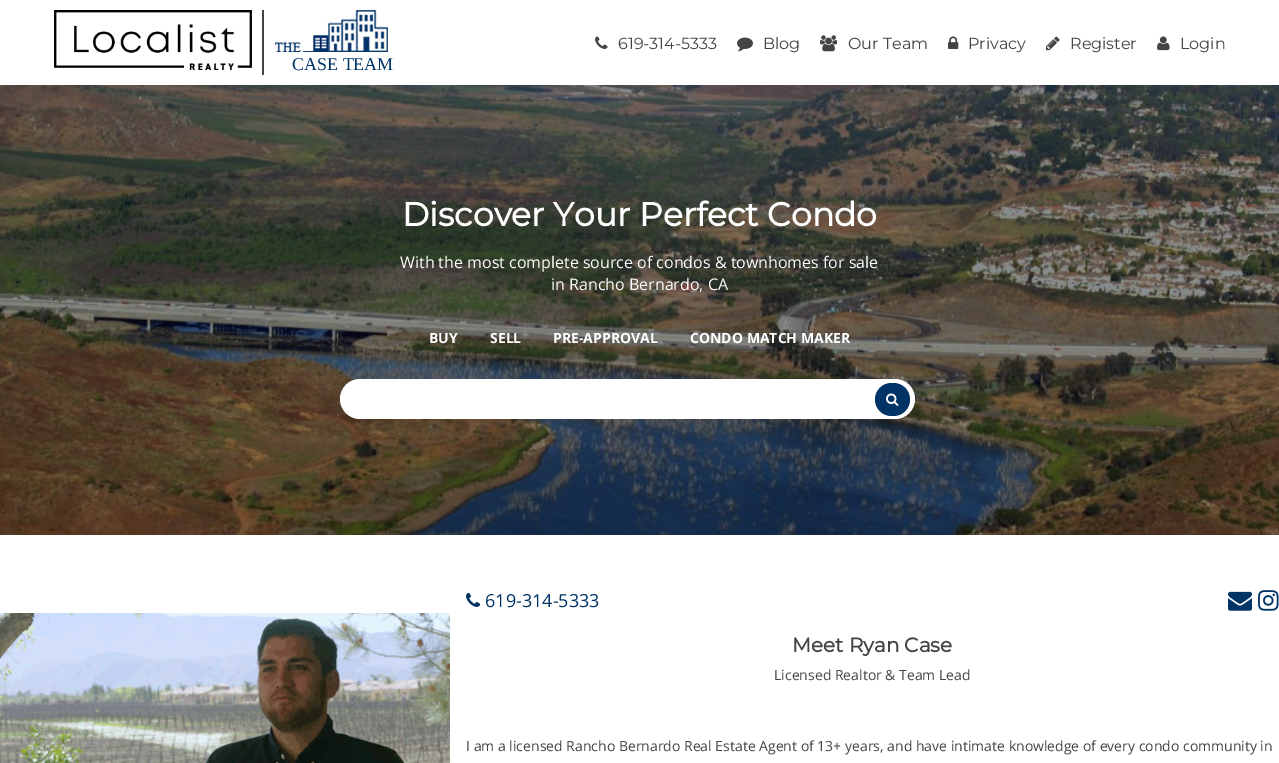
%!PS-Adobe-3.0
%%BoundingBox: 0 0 1279 763
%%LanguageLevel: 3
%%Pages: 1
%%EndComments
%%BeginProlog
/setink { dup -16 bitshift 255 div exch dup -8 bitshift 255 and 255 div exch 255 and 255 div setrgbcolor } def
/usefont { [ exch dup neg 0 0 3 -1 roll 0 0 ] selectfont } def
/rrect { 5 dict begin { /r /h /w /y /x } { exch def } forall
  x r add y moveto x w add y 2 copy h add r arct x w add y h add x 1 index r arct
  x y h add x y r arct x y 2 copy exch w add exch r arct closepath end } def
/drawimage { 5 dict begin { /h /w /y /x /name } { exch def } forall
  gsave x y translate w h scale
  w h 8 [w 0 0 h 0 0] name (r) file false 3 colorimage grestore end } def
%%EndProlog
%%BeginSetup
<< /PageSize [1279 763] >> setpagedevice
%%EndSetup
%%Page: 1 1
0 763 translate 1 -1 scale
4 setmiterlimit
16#FFFFFF setink
0 0 1279 763 rectfill
(img1.raw) 595 36 13 13 drawimage
/Montserrat-Thin 16 usefont
16#444444 setink
618 49 moveto (619-314-5333) show
(img2.raw) 737 37 16 15 drawimage
763 49 moveto (Blog) show
(img3.raw) 820 35 18 17 drawimage
848 49 moveto (Our Team) show
(img4.raw) 948 36 11 13 drawimage
968 49 moveto (Privacy) show
(img5.raw) 1046 36 14 15 drawimage
1070 49 moveto (Register) show
(img6.raw) 1157 36 13 15 drawimage
1180 49 moveto (Login) show
262 10 2 65 rectfill
(img7.raw) 54 10 198 60 drawimage
(img8.raw) 275 10 113 42 drawimage
/LiberationSerif-Regular 18 usefont
16#003366 setink
292 70 moveto (CASE TEAM) show
(img9.raw) 0 85 1279 450 drawimage
/Montserrat-Bold 33 usefont
16#FFFFFF setink
402 226 moveto (Discover Your Perfect Condo) show
/OpenSans-Regular 16 usefont
400 268 moveto (With the most complete source of condos & townhomes for sale) show
551 290 moveto (in Rancho Bernardo, CA) show
/OpenSans-Bold 14 usefont
[
    [(BUY) 429 343]
    [(SELL) 490 343]
    [(PRE-APPROVAL) 553 343]
    [(CONDO MATCH MAKER) 690 343]
] { aload pop moveto show } forall
340 379 575 40 20 rrect fill
16#003366 setink
875 383 35 33 16.5 rrect fill
(img10.raw) 886 393 13 13 drawimage
(img11.raw) 0 613 450 150 drawimage
(img12.raw) 466 592 15 15 drawimage
/OpenSans-Regular 18 usefont
485 607 moveto (619-314-5333) show
(img13.raw) 1228 591 24 20 drawimage
(img14.raw) 1258 590 21 21 drawimage
/Montserrat-Bold 20 usefont
16#444444 setink
792 652 moveto (Meet Ryan Case) show
/OpenSans-Regular 14 usefont
774 680 moveto (Licensed Realtor & Team Lead) show
466 751 moveto (I am a licensed Rancho Bernardo Real Estate Agent of 13+ years, and have intimate knowledge of every condo community in) show
showpage
%%EOF
